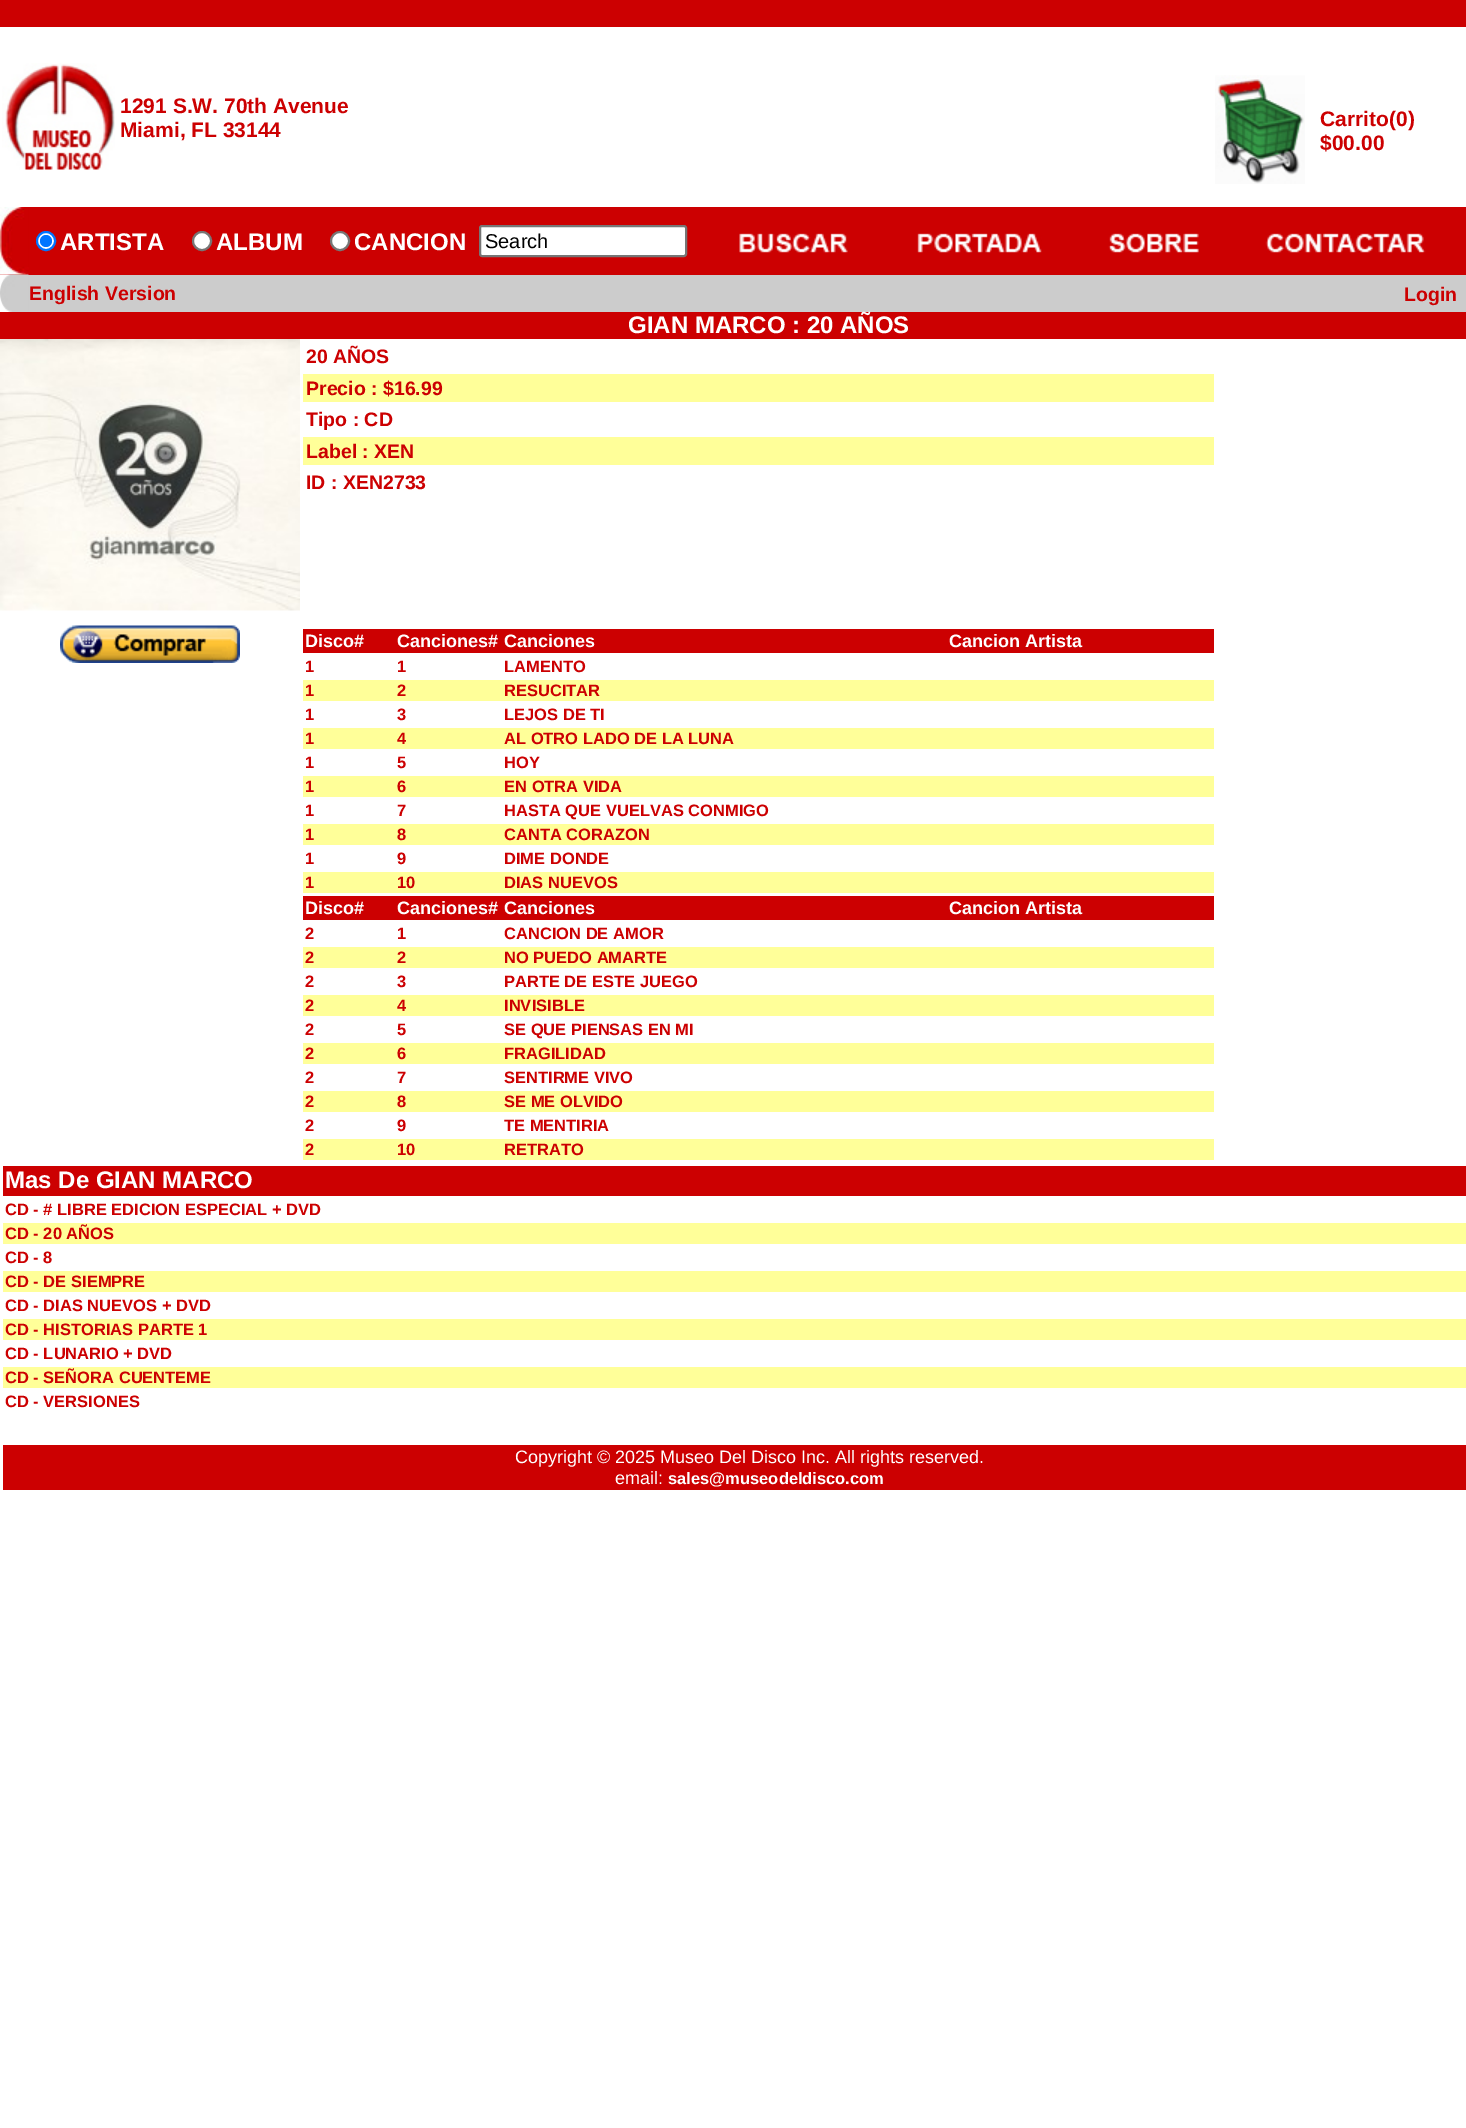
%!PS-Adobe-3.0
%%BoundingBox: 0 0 1466 2128
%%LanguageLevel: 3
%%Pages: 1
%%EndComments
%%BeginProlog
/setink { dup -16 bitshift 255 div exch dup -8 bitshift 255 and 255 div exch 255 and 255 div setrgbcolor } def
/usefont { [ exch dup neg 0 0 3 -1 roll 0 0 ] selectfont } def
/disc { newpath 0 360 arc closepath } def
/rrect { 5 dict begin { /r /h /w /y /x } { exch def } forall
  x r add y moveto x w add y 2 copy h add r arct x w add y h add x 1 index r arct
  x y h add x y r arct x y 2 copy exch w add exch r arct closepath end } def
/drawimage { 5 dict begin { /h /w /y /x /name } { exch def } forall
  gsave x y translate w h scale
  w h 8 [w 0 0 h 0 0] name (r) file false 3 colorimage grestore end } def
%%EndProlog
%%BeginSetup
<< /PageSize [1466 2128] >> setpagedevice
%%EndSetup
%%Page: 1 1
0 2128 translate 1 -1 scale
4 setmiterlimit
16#FFFFFF setink
0 0 1466 2128 rectfill
16#CC0001 setink
0 0 1466 27 rectfill
(img1.raw) 2 63 113 107 drawimage
/LiberationSans-Bold 21 usefont
120 113 moveto (1291 S.W. 70th Avenue) show
120 137 moveto (Miami, FL 33144) show
(img2.raw) 1215 75 90 109 drawimage
1320 126 moveto (Carrito\(0\)) show
1320 150 moveto ($00.00) show
0 207 1466 68 rectfill
(img3.raw) 0 207 29 68 drawimage
16#FFFFFF setink
46 241 9 disc gsave fill grestore
16#0075FF setink
2 setlinewidth
stroke
46 241 6 disc fill
/LiberationSans-Bold 24 usefont
16#FFFFFF setink
60 250 moveto (ARTISTA) show
202 241 9 disc gsave fill grestore
16#767676 setink
stroke
16#FFFFFF setink
216 250 moveto (ALBUM) show
340 241 9 disc gsave fill grestore
16#767676 setink
stroke
16#FFFFFF setink
354 250 moveto (CANCION) show
480 226 206 30 2 rrect gsave fill grestore
16#767676 setink
stroke
/LiberationSans-Regular 20 usefont
16#000000 setink
485 248 moveto (Search) show
(img4.raw) 739 233 109 20 drawimage
(img5.raw) 917 233 125 20 drawimage
(img6.raw) 1108 233 91 20 drawimage
(img7.raw) 1265 233 161 20 drawimage
16#CCCCCC setink
28 275 1438 37 rectfill
(img8.raw) 0 274 29 38 drawimage
/LiberationSans-Bold 19.5 usefont
16#CC0001 setink
29 300 moveto (English Version) show
1404 301 moveto (Login) show
0 312 1466 27 rectfill
/LiberationSans-Bold 24 usefont
16#FFFFFF setink
628 333 moveto (GIAN MARCO : 20 AÑOS) show
(img9.raw) 0 339 300 272 drawimage
/LiberationSans-Bold 19.5 usefont
16#CC0001 setink
306 363 moveto (20 AÑOS) show
16#FFFF99 setink
303 374 911 28 rectfill
16#CC0001 setink
306 395 moveto (Precio : $16.99) show
306 426 moveto (Tipo : CD) show
16#FFFF99 setink
303 437 911 28 rectfill
16#CC0001 setink
306 458 moveto (Label : XEN) show
306 489 moveto (ID : XEN2733) show
(img10.raw) 60 625 180 38 drawimage
303 629 911 24 rectfill
/LiberationSans-Bold 18 usefont
16#FFFFFF setink
[
    [(Disco#) 305 647]
    [(Canciones#) 397 647]
    [(Canciones) 504 647]
    [(Cancion Artista) 949 647]
] { aload pop moveto show } forall
/LiberationSans-Bold 16.5 usefont
16#CC0001 setink
[
    [(1) 305 672]
    [(1) 397 672]
    [(LAMENTO) 504 672]
] { aload pop moveto show } forall
16#FFFF99 setink
303 680 911 21 rectfill
16#CC0001 setink
[
    [(1) 305 696]
    [(2) 397 696]
    [(RESUCITAR) 504 696]
    [(1) 305 720]
    [(3) 397 720]
    [(LEJOS DE TI) 504 720]
] { aload pop moveto show } forall
16#FFFF99 setink
303 728 911 21 rectfill
16#CC0001 setink
[
    [(1) 305 744]
    [(4) 397 744]
    [(AL OTRO LADO DE LA LUNA) 504 744]
    [(1) 305 768]
    [(5) 397 768]
    [(HOY) 504 768]
] { aload pop moveto show } forall
16#FFFF99 setink
303 776 911 21 rectfill
16#CC0001 setink
[
    [(1) 305 792]
    [(6) 397 792]
    [(EN OTRA VIDA) 504 792]
    [(1) 305 816]
    [(7) 397 816]
    [(HASTA QUE VUELVAS CONMIGO) 504 816]
] { aload pop moveto show } forall
16#FFFF99 setink
303 824 911 21 rectfill
16#CC0001 setink
[
    [(1) 305 840]
    [(8) 397 840]
    [(CANTA CORAZON) 504 840]
    [(1) 305 864]
    [(9) 397 864]
    [(DIME DONDE) 504 864]
] { aload pop moveto show } forall
16#FFFF99 setink
303 872 911 21 rectfill
16#CC0001 setink
[
    [(1) 305 888]
    [(10) 397 888]
    [(DIAS NUEVOS) 504 888]
] { aload pop moveto show } forall
303 896 911 24 rectfill
/LiberationSans-Bold 18 usefont
16#FFFFFF setink
[
    [(Disco#) 305 914]
    [(Canciones#) 397 914]
    [(Canciones) 504 914]
    [(Cancion Artista) 949 914]
] { aload pop moveto show } forall
/LiberationSans-Bold 16.5 usefont
16#CC0001 setink
[
    [(2) 305 939]
    [(1) 397 939]
    [(CANCION DE AMOR) 504 939]
] { aload pop moveto show } forall
16#FFFF99 setink
303 947 911 21 rectfill
16#CC0001 setink
[
    [(2) 305 963]
    [(2) 397 963]
    [(NO PUEDO AMARTE) 504 963]
    [(2) 305 987]
    [(3) 397 987]
    [(PARTE DE ESTE JUEGO) 504 987]
] { aload pop moveto show } forall
16#FFFF99 setink
303 995 911 21 rectfill
16#CC0001 setink
[
    [(2) 305 1011]
    [(4) 397 1011]
    [(INVISIBLE) 504 1011]
    [(2) 305 1035]
    [(5) 397 1035]
    [(SE QUE PIENSAS EN MI) 504 1035]
] { aload pop moveto show } forall
16#FFFF99 setink
303 1043 911 21 rectfill
16#CC0001 setink
[
    [(2) 305 1059]
    [(6) 397 1059]
    [(FRAGILIDAD) 504 1059]
    [(2) 305 1083]
    [(7) 397 1083]
    [(SENTIRME VIVO) 504 1083]
] { aload pop moveto show } forall
16#FFFF99 setink
303 1091 911 21 rectfill
16#CC0001 setink
[
    [(2) 305 1107]
    [(8) 397 1107]
    [(SE ME OLVIDO) 504 1107]
    [(2) 305 1131]
    [(9) 397 1131]
    [(TE MENTIRIA) 504 1131]
] { aload pop moveto show } forall
16#FFFF99 setink
303 1139 911 21 rectfill
16#CC0001 setink
[
    [(2) 305 1155]
    [(10) 397 1155]
    [(RETRATO) 504 1155]
] { aload pop moveto show } forall
3 1166 1463 30 rectfill
/LiberationSans-Bold 24 usefont
16#FFFFFF setink
5 1188 moveto (Mas De GIAN MARCO) show
/LiberationSans-Bold 16.5 usefont
16#CC0001 setink
5 1215 moveto (CD - # LIBRE EDICION ESPECIAL + DVD) show
16#FFFF99 setink
3 1223 1463 21 rectfill
16#CC0001 setink
5 1239 moveto (CD - 20 AÑOS) show
5 1263 moveto (CD - 8) show
16#FFFF99 setink
3 1271 1463 21 rectfill
16#CC0001 setink
5 1287 moveto (CD - DE SIEMPRE) show
5 1311 moveto (CD - DIAS NUEVOS + DVD) show
16#FFFF99 setink
3 1319 1463 21 rectfill
16#CC0001 setink
5 1335 moveto (CD - HISTORIAS PARTE 1) show
5 1359 moveto (CD - LUNARIO + DVD) show
16#FFFF99 setink
3 1367 1463 21 rectfill
16#CC0001 setink
5 1383 moveto (CD - SEÑORA CUENTEME) show
5 1407 moveto (CD - VERSIONES) show
3 1445 1463 45 rectfill
/LiberationSans-Regular 18 usefont
16#FFFFFF setink
515 1463 moveto (Copyright © 2025 Museo Del Disco Inc. All rights reserved.) show
615 1484 moveto (email:) show
/LiberationSans-Bold 16.5 usefont
668 1484 moveto (sales@museodeldisco.com) show
showpage
%%EOF
